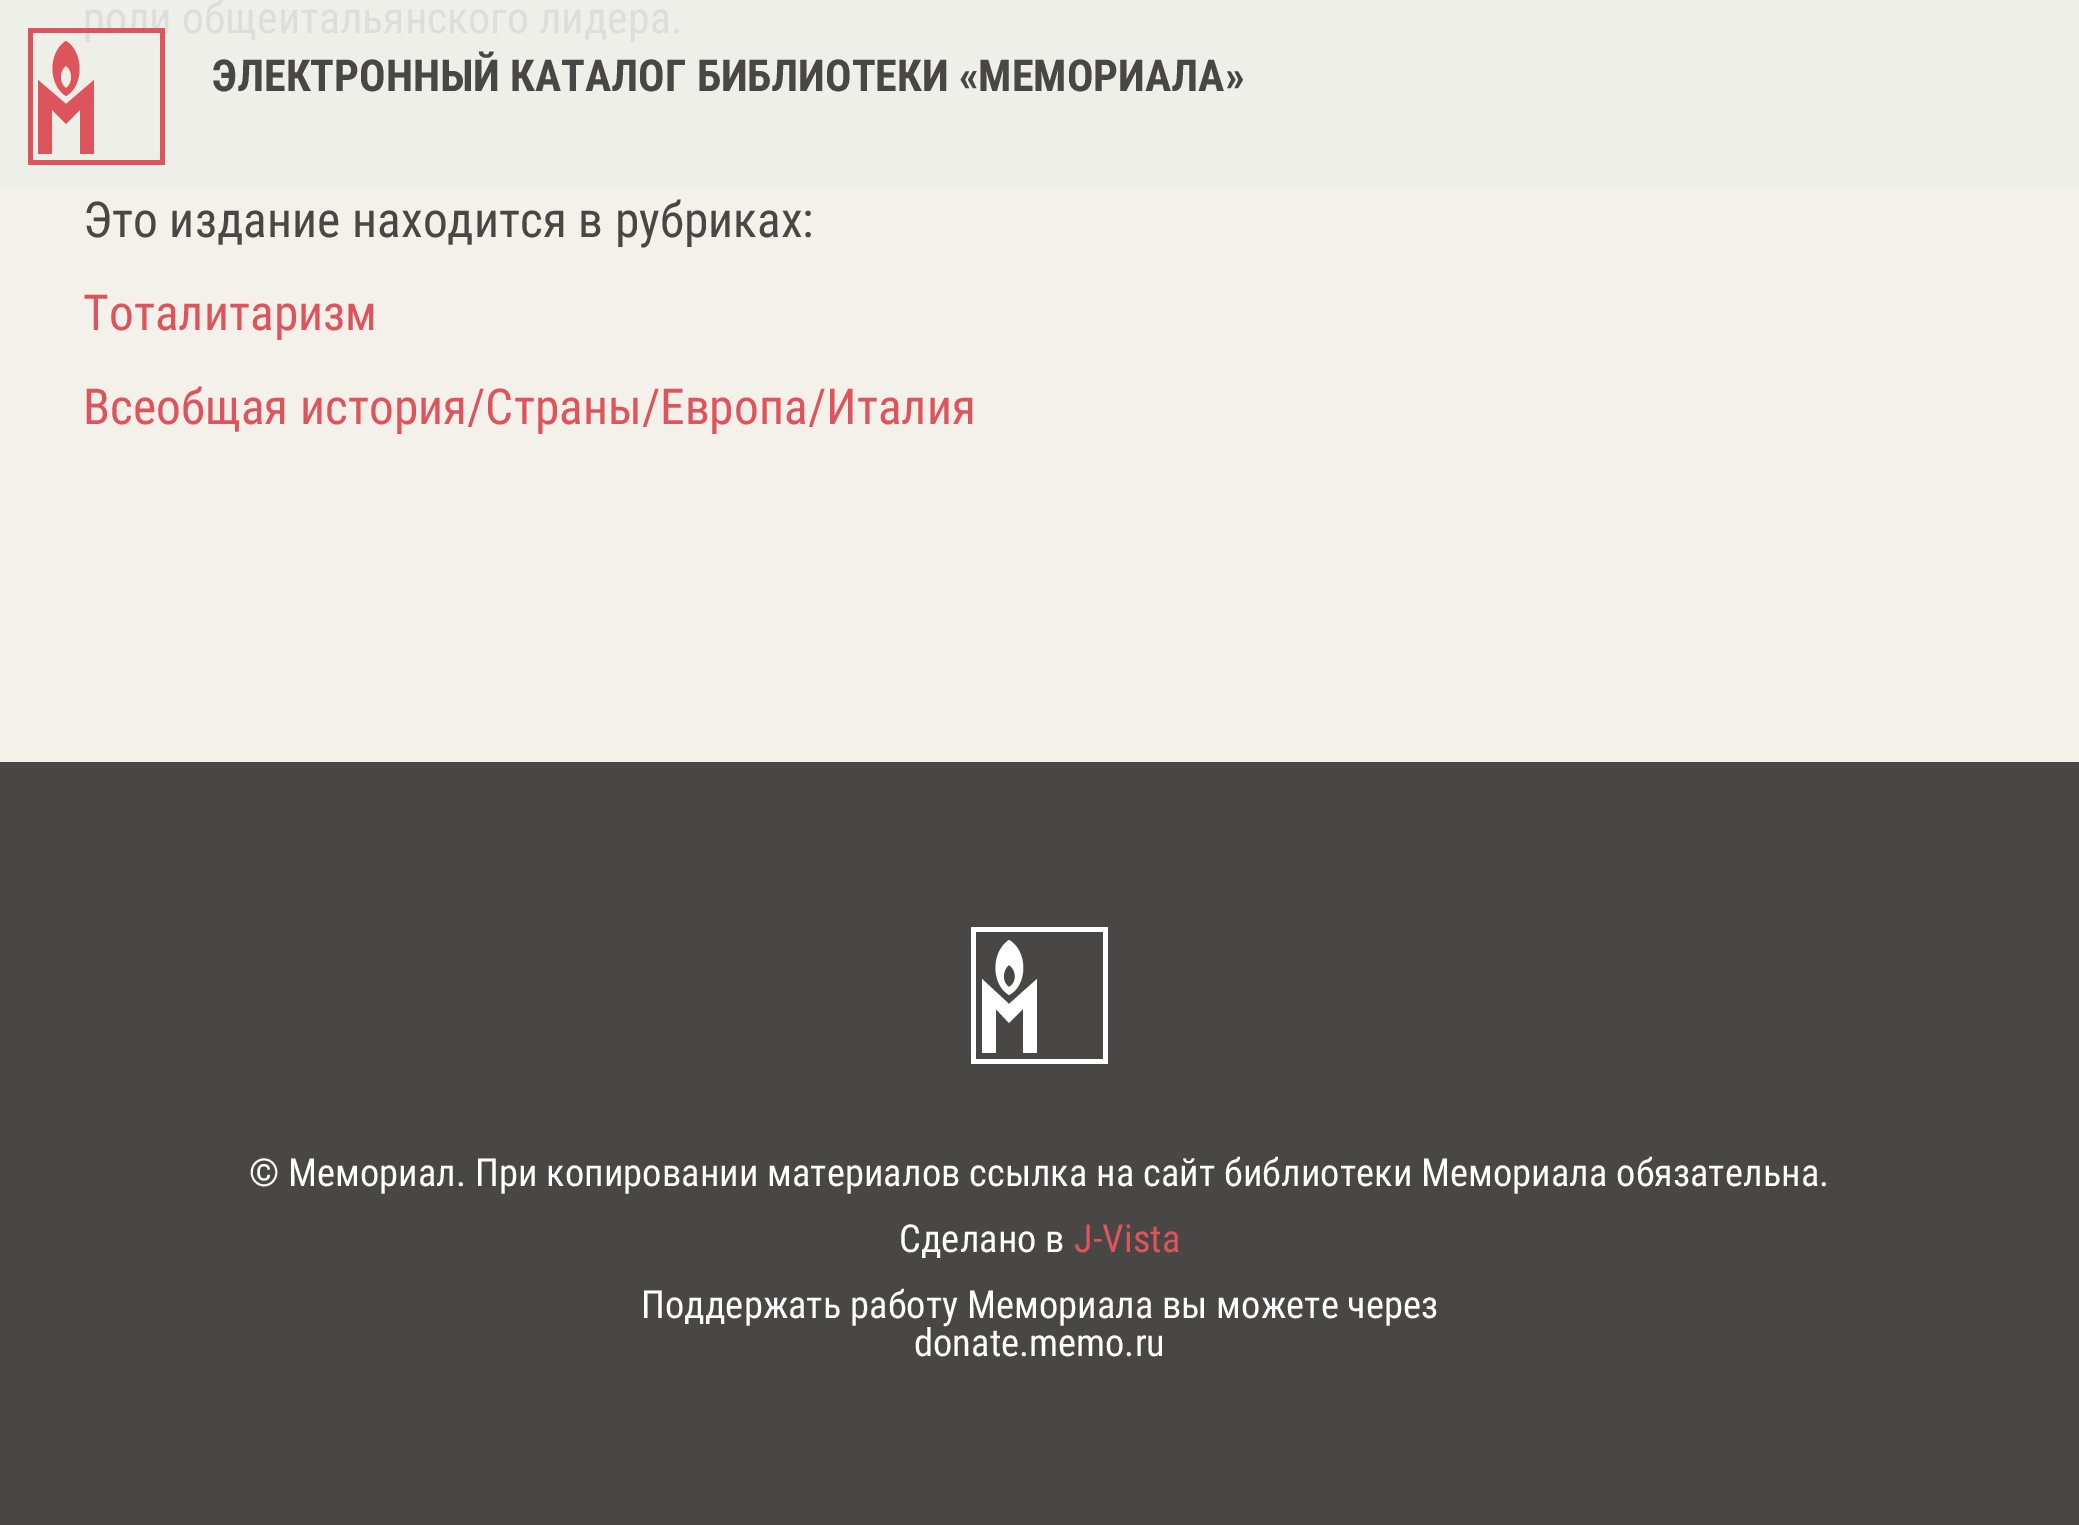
%!PS-Adobe-3.0
%%BoundingBox: 0 0 2079 1525
%%LanguageLevel: 3
%%Pages: 1
%%EndComments
%%BeginProlog
/setink { dup -16 bitshift 255 div exch dup -8 bitshift 255 and 255 div exch 255 and 255 div setrgbcolor } def
/usefont { [ exch dup neg 0 0 3 -1 roll 0 0 ] selectfont } def
%%EndProlog
%%BeginSetup
<< /PageSize [2079 1525] >> setpagedevice
%%EndSetup
%%Page: 1 1
0 1525 translate 1 -1 scale
4 setmiterlimit
16#F4F1EA setink
0 0 2079 1525 rectfill
16#EFEFEA setink
0 0 2079 187 rectfill
/RobotoCondensed-Regular 44 usefont
16#DDDEDA setink
83 33 moveto (роли общеитальянского лидера.) show
/RobotoCondensed-Regular 49.5 usefont
16#484745 setink
83 237 moveto (Это издание находится в рубриках:) show
16#DD545C setink
83 330 moveto (Тоталитаризм) show
83 424 moveto (Всеобщая история/Страны/Европа/Италия) show
gsave
28 28 137 137 rectclip
28 165 moveto 28 27 lineto 165 27 lineto 165 165 lineto closepath 160 33 moveto 33 33 lineto 33 160 lineto 160 160 lineto closepath 94 80 moveto 94 154 lineto 80 154 lineto 80 110 lineto 66 124 lineto 52 110 lineto 52 154 lineto 38 154 lineto 38 80 lineto 66 104 lineto closepath 66 96 moveto 48 85 48 52 66 41 curveto 84 52 84 86 66 96 curveto closepath 66 66 moveto 59 70 59 84 66 88 curveto 73 84 73 70 66 66 curveto closepath eofill
grestore
/RobotoCondensed-Bold 44 usefont
16#484745 setink
212 91 moveto (ЭЛЕКТРОННЫЙ КАТАЛОГ БИБЛИОТЕКИ «МЕМОРИАЛА») show
0 762 2079 763 rectfill
16#FFFFFF setink
971 1064 moveto 971 927 lineto 1108 927 lineto 1108 1064 lineto closepath 1103 932 moveto 976 932 lineto 976 1059 lineto 1103 1059 lineto closepath 1037 979 moveto 1037 1053 lineto 1023 1053 lineto 1023 1009 lineto 1009 1023 lineto 996 1009 lineto 996 1053 lineto 982 1053 lineto 982 979 lineto 1009 1004 lineto closepath 1009 995 moveto 991 984 991 952 1009 940 curveto 1028 951 1028 985 1009 995 curveto closepath 1009 965 moveto 1002 970 1002 983 1009 987 curveto 1017 983 1017 970 1009 965 curveto closepath eofill
/RobotoCondensed-Regular 38.5 usefont
249 1186 moveto (© Мемориал. При копировании материалов ссылка на сайт библиотеки Мемориала обязательна.) show
899 1252 moveto (Сделано в) show
16#DD545C setink
1074 1252 moveto (J-Vista) show
16#FFFFFF setink
641 1318 moveto (Поддержать работу Мемориала вы можете через) show
914 1356 moveto (donate.memo.ru) show
showpage
%%EOF
